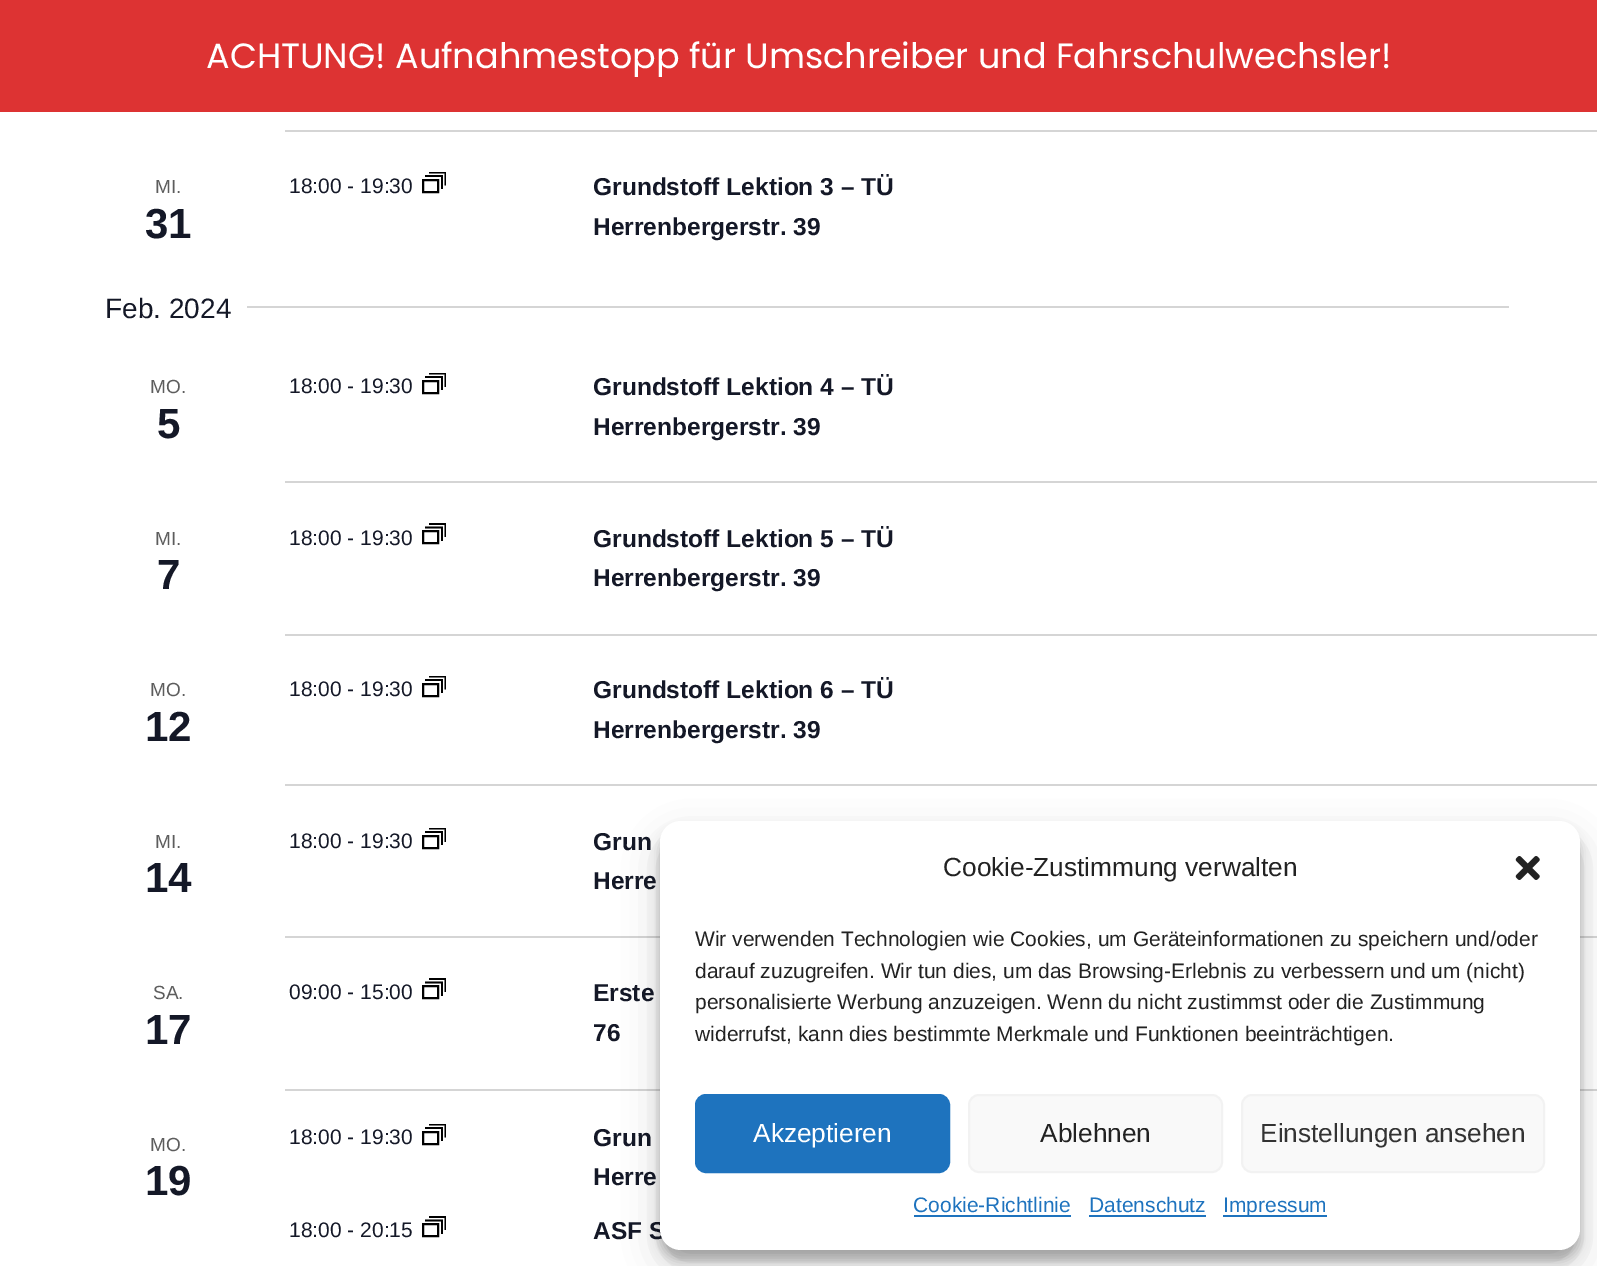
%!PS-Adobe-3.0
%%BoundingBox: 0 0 1597 1266
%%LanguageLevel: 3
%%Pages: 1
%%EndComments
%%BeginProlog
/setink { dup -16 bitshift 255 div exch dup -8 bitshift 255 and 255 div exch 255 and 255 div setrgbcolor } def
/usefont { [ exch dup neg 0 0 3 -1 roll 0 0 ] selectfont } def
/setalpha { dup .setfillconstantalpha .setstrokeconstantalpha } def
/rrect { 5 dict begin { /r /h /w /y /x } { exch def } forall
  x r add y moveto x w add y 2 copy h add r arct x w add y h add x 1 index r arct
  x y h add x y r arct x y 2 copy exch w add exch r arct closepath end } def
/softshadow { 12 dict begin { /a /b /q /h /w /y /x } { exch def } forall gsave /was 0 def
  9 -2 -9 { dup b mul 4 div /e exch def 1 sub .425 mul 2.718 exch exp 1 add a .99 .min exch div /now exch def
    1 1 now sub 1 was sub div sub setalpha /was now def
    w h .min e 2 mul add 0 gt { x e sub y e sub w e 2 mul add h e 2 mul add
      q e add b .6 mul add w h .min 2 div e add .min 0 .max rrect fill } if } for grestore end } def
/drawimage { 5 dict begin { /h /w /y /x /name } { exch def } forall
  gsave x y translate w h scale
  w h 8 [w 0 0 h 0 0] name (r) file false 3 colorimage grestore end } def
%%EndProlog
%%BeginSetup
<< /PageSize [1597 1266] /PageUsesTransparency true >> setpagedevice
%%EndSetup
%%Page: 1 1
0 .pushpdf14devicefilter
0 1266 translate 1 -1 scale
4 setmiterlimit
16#FFFFFF setink
0 0 1597 1266 rectfill
16#DD3333 setink
0 0 1597 112 rectfill
/Poppins-Regular 35 usefont
16#FFFFFF setink
206 68 moveto (ACHTUNG! Aufnahmestopp für Umschreiber und Fahrschulwechsler!) show
16#D5D5D5 setink
285 130 1312 2 rectfill
/LiberationSans-Regular 19 usefont
16#5D5D5D setink
155 193 moveto (MI.) show
/LiberationSans-Bold 42 usefont
16#141827 setink
145 238 moveto (31) show
/LiberationSans-Regular 21 usefont
289 193 moveto (18:00 - 19:30) show
16#000000 setink
2 setlinewidth
423 180 15 12 rectstroke
1.8 setlinewidth
425 176 moveto 442 176 lineto 442 189 lineto stroke
gsave
422 172 24 21 rectclip
429 172.5 moveto 445.5 172.5 lineto 445.5 185.5 lineto stroke
grestore
/LiberationSans-Bold 24.5 usefont
16#141827 setink
593 195 moveto (Grundstoff Lektion 3 – TÜ) show
593 235 moveto (Herrenbergerstr. 39) show
/LiberationSans-Regular 28 usefont
105 318 moveto (Feb. 2024) show
16#D5D5D5 setink
247 306 1262 2 rectfill
/LiberationSans-Regular 19 usefont
16#5D5D5D setink
150 393 moveto (MO.) show
/LiberationSans-Bold 42 usefont
16#141827 setink
157 438 moveto (5) show
/LiberationSans-Regular 21 usefont
289 393 moveto (18:00 - 19:30) show
16#000000 setink
2 setlinewidth
423 381 15 12 rectstroke
1.8 setlinewidth
425 377 moveto 442 377 lineto 442 390 lineto stroke
gsave
422 373 24 21 rectclip
429 373.5 moveto 445.5 373.5 lineto 445.5 387 lineto stroke
grestore
/LiberationSans-Bold 24.5 usefont
16#141827 setink
593 395 moveto (Grundstoff Lektion 4 – TÜ) show
593 435 moveto (Herrenbergerstr. 39) show
16#D5D5D5 setink
285 481 1312 2 rectfill
/LiberationSans-Regular 19 usefont
16#5D5D5D setink
155 545 moveto (MI.) show
/LiberationSans-Bold 42 usefont
16#141827 setink
157 589 moveto (7) show
/LiberationSans-Regular 21 usefont
289 545 moveto (18:00 - 19:30) show
16#000000 setink
2 setlinewidth
423 531 15 12 rectstroke
1.8 setlinewidth
425 527.5 moveto 442 527.5 lineto 442 541 lineto stroke
gsave
422 523 24 21 rectclip
429 524 moveto 445.5 524 lineto 445.5 537 lineto stroke
grestore
/LiberationSans-Bold 24.5 usefont
16#141827 setink
593 547 moveto (Grundstoff Lektion 5 – TÜ) show
593 586 moveto (Herrenbergerstr. 39) show
16#D5D5D5 setink
285 634 1312 2 rectfill
/LiberationSans-Regular 19 usefont
16#5D5D5D setink
150 696 moveto (MO.) show
/LiberationSans-Bold 42 usefont
16#141827 setink
145 741 moveto (12) show
/LiberationSans-Regular 21 usefont
289 696 moveto (18:00 - 19:30) show
16#000000 setink
2 setlinewidth
423 684 15 12 rectstroke
1.8 setlinewidth
425 680 moveto 442 680 lineto 442 693 lineto stroke
gsave
422 676 24 21 rectclip
429 676.5 moveto 445.5 676.5 lineto 445.5 689.5 lineto stroke
grestore
/LiberationSans-Bold 24.5 usefont
16#141827 setink
593 698 moveto (Grundstoff Lektion 6 – TÜ) show
593 738 moveto (Herrenbergerstr. 39) show
16#D5D5D5 setink
285 784 1312 2 rectfill
/LiberationSans-Regular 19 usefont
16#5D5D5D setink
155 848 moveto (MI.) show
/LiberationSans-Bold 42 usefont
16#141827 setink
145 892 moveto (14) show
/LiberationSans-Regular 21 usefont
289 848 moveto (18:00 - 19:30) show
16#000000 setink
2 setlinewidth
423 836 15 12 rectstroke
1.8 setlinewidth
425 832 moveto 442 832 lineto 442 845 lineto stroke
gsave
422 828 24 21 rectclip
429 828.5 moveto 445.5 828.5 lineto 445.5 842 lineto stroke
grestore
/LiberationSans-Bold 24.5 usefont
16#141827 setink
593 850 moveto (Grun) show
593 889 moveto (Herre) show
16#D5D5D5 setink
285 936 1312 2 rectfill
/LiberationSans-Regular 19 usefont
16#5D5D5D setink
153 999 moveto (SA.) show
/LiberationSans-Bold 42 usefont
16#141827 setink
145 1044 moveto (17) show
/LiberationSans-Regular 21 usefont
289 999 moveto (09:00 - 15:00) show
16#000000 setink
2 setlinewidth
423 986 15 12 rectstroke
1.8 setlinewidth
425 982.5 moveto 442 982.5 lineto 442 996 lineto stroke
gsave
422 978 24 21 rectclip
429 979 moveto 445.5 979 lineto 445.5 992 lineto stroke
grestore
/LiberationSans-Bold 24.5 usefont
16#141827 setink
593 1001 moveto (Erste) show
593 1041 moveto (76) show
16#D5D5D5 setink
285 1089 1312 2 rectfill
/LiberationSans-Regular 19 usefont
16#5D5D5D setink
150 1151 moveto (MO.) show
/LiberationSans-Bold 42 usefont
16#141827 setink
145 1195 moveto (19) show
/LiberationSans-Regular 21 usefont
289 1144 moveto (18:00 - 19:30) show
16#000000 setink
2 setlinewidth
423 1132 15 12 rectstroke
1.8 setlinewidth
425 1128 moveto 442 1128 lineto 442 1141 lineto stroke
gsave
422 1124 24 21 rectclip
429 1124.5 moveto 445.5 1124.5 lineto 445.5 1137.5 lineto stroke
grestore
/LiberationSans-Bold 24.5 usefont
16#141827 setink
593 1146 moveto (Grun) show
593 1185 moveto (Herre) show
/LiberationSans-Regular 21 usefont
289 1237 moveto (18:00 - 20:15) show
16#000000 setink
2 setlinewidth
423 1224 15 12 rectstroke
1.8 setlinewidth
425 1220.5 moveto 442 1220.5 lineto 442 1234 lineto stroke
gsave
422 1216 24 21 rectclip
429 1217 moveto 445.5 1217 lineto 445.5 1230 lineto stroke
grestore
/LiberationSans-Bold 24.5 usefont
16#141827 setink
593 1239 moveto (ASF S) show
16#000000 setink
660 831 920 429 21 5 0.23 softshadow
660 838 920 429 21 17.5 0.19 softshadow
16#FFFFFF setink
660 821 920 429 21 rrect fill
/LiberationSans-Regular 26.25 usefont
16#222222 setink
943 876 moveto (Cookie-Zustimmung verwalten) show
(img1.raw) 1515 856 25 24 drawimage
/LiberationSans-Regular 21 usefont
[
    [(Wir verwenden Technologien wie Cookies, um Geräteinformationen zu speichern und/oder) 695 946]
    [(darauf zuzugreifen. Wir tun dies, um das Browsing-Erlebnis zu verbessern und um \(nicht\)) 695 978]
    [(personalisierte Werbung anzuzeigen. Wenn du nicht zustimmst oder die Zustimmung) 695 1009]
    [(widerrufst, kann dies bestimmte Merkmale und Funktionen beeinträchtigen.) 695 1041]
] { aload pop moveto show } forall
16#1E73BE setink
696 1095 253 77 10 rrect gsave fill grestore
2 setlinewidth
stroke
/LiberationSans-Regular 26.25 usefont
16#FFFFFF setink
753 1142 moveto (Akzeptieren) show
16#F9F9F9 setink
969 1095 253 77 10 rrect gsave fill grestore
16#F2F2F2 setink
stroke
16#222222 setink
1040 1142 moveto (Ablehnen) show
16#F9F9F9 setink
1242 1095 302 77 10 rrect gsave fill grestore
16#F2F2F2 setink
stroke
16#333333 setink
1260 1142 moveto (Einstellungen ansehen) show
/LiberationSans-Regular 21 usefont
16#1E73BE setink
913 1212 moveto (Cookie-Richtlinie) show
914 1215 157 2 rectfill
1089 1212 moveto (Datenschutz) show
1089 1215 117 2 rectfill
1223 1215 104 2 rectfill
1223 1212 moveto (Impressum) show
.poppdf14devicefilter showpage
%%EOF
